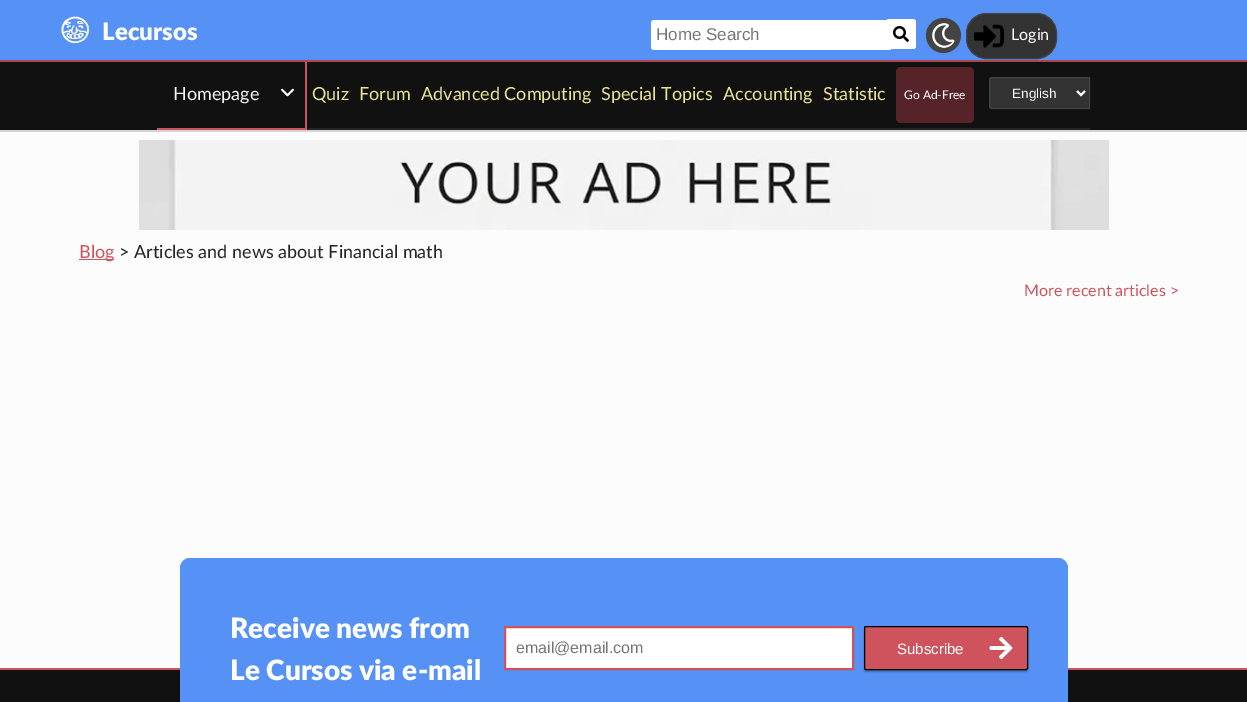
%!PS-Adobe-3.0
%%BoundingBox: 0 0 1247 702
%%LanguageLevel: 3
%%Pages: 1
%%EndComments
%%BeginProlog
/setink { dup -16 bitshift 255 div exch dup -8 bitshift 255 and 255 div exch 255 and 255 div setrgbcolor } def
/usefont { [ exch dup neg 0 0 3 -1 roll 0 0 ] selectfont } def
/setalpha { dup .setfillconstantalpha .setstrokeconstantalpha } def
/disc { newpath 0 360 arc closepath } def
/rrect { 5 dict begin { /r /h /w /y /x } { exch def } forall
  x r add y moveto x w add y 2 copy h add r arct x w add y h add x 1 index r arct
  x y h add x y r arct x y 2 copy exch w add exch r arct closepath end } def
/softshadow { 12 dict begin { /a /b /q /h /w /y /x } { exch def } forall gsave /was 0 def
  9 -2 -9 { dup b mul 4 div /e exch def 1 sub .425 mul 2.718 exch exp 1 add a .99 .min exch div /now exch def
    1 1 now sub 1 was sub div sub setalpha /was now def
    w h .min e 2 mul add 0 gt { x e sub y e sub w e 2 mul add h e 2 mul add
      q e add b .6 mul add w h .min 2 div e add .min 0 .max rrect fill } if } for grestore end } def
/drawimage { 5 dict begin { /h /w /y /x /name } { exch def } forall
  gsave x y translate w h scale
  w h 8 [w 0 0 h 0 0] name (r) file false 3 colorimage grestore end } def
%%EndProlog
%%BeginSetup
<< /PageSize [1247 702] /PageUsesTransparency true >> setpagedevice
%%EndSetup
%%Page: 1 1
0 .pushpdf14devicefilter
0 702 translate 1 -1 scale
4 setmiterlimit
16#FCFCFC setink
0 0 1247 702 rectfill
16#5692F6 setink
0 0 1247 60 rectfill
16#AD464E setink
0 60 1247 2 rectfill
(img1.raw) 61 16 29 28 drawimage
/Lato-Black 24 usefont
16#FFFFFF setink
102 40 moveto (Lecursos) show
16#444444 setink
943.5 35.5 17.5 disc fill
16#FFFFFF setink
654 20 moveto 891 20 lineto 891 50 lineto 654 50 lineto 652.5 50 651 48.5 651 47 curveto 651 23 lineto 651 21.5 652.5 20 654 20 curveto closepath fill
/LiberationSans-Regular 17 usefont
16#757575 setink
656 40 moveto (Home Search) show
16#FFFFFF setink
886 19 30 30 3 rrect fill
(img2.raw) 893 26 16 16 drawimage
(img3.raw) 932 23 23 25 drawimage
16#333333 setink
966.5 13.5 90 45 19.5 rrect gsave fill grestore
16#444444 setink
stroke
(img4.raw) 974 24 30 24 drawimage
/Lato-Regular 16 usefont
16#FFFFFF setink
1011 40 moveto (Login) show
[
    [0 130 1247 2 16#D4D4D4]
    [0 62 1247 68 16#111111]
    [305 62 2 68 16#CE535D]
    [157 128 150 2 16#CE535D]
] { aload pop setink rectfill } forall
/Lato-Regular 18 usefont
16#F5F5F5 setink
173 100 moveto (Homepage) show
(img5.raw) 281 88 13 9 drawimage
16#212529 setink
307 128 783 2 rectfill
16#EAE393 setink
[
    [(Quiz) 312 100]
    [(Forum) 359 100]
    [(Advanced Computing) 421 100]
    [(Special Topics) 601 100]
    [(Accounting) 723 100]
    [(Statistic) 823 100]
] { aload pop moveto show } forall
16#562329 setink
896 67 78 56 5 rrect fill
/Lato-Regular 12 usefont
16#FFFFFF setink
904 99 moveto (Go Ad-Free) show
16#333333 setink
992 77 moveto 1090 77 lineto 1090 109 lineto 992 109 lineto 990.5 109 989 107.5 989 106 curveto 989 80 lineto 989 78.5 990.5 77 992 77 curveto closepath fill
0.25 setalpha
16#737B89 setink
992 77.5 moveto 1089.5 77.5 lineto 1089.5 108.5 lineto 992 108.5 lineto 990.5 108.5 989.5 107.5 989.5 106 curveto 989.5 80 lineto 989.5 78.5 990.5 77.5 992 77.5 curveto closepath stroke
1 setalpha
16#FFFFFF setink
2 setlinewidth
1077 91 moveto 1081 95 lineto 1085 91 lineto stroke
/LiberationSans-Regular 13.5 usefont
1012 98 moveto (English) show
(img6.raw) 139 140 970 90 drawimage
16#CE535D setink
79 259 35 1 rectfill
/Lato-Regular 18 usefont
79 258 moveto (Blog) show
16#212529 setink
119 258 moveto (> Articles and news about Financial math) show
/Lato-Regular 16 usefont
16#CE535D setink
1024 296 moveto (More recent articles >) show
16#111111 setink
0 670 1247 32 rectfill
16#CE535D setink
0 668 1247 2 rectfill
16#5692F6 setink
180 558 888 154 10 rrect fill
/Lato-Black 28 usefont
16#FFFFFF setink
230 638 moveto (Receive news from) show
230 680 moveto (Le Cursos via e-mail) show
505 627 moveto 853 627 lineto 853 669 lineto 505 669 lineto closepath gsave fill grestore
16#CE535D setink
stroke
/LiberationSans-Regular 16 usefont
16#757575 setink
516 653 moveto (email@email.com) show
16#000000 setink
864 628 164 44 2 1 0.12 softshadow
864 628 164 44 2 1 0.16 softshadow
16#CE535D setink
864.5 626.5 163 43 1.5 rrect gsave fill grestore
16#000000 setink
1 setlinewidth
stroke
/LiberationSans-Regular 15 usefont
16#FFFFFF setink
897 654 moveto (Subscribe) show
(img7.raw) 989 636 24 24 drawimage
.poppdf14devicefilter showpage
%%EOF
